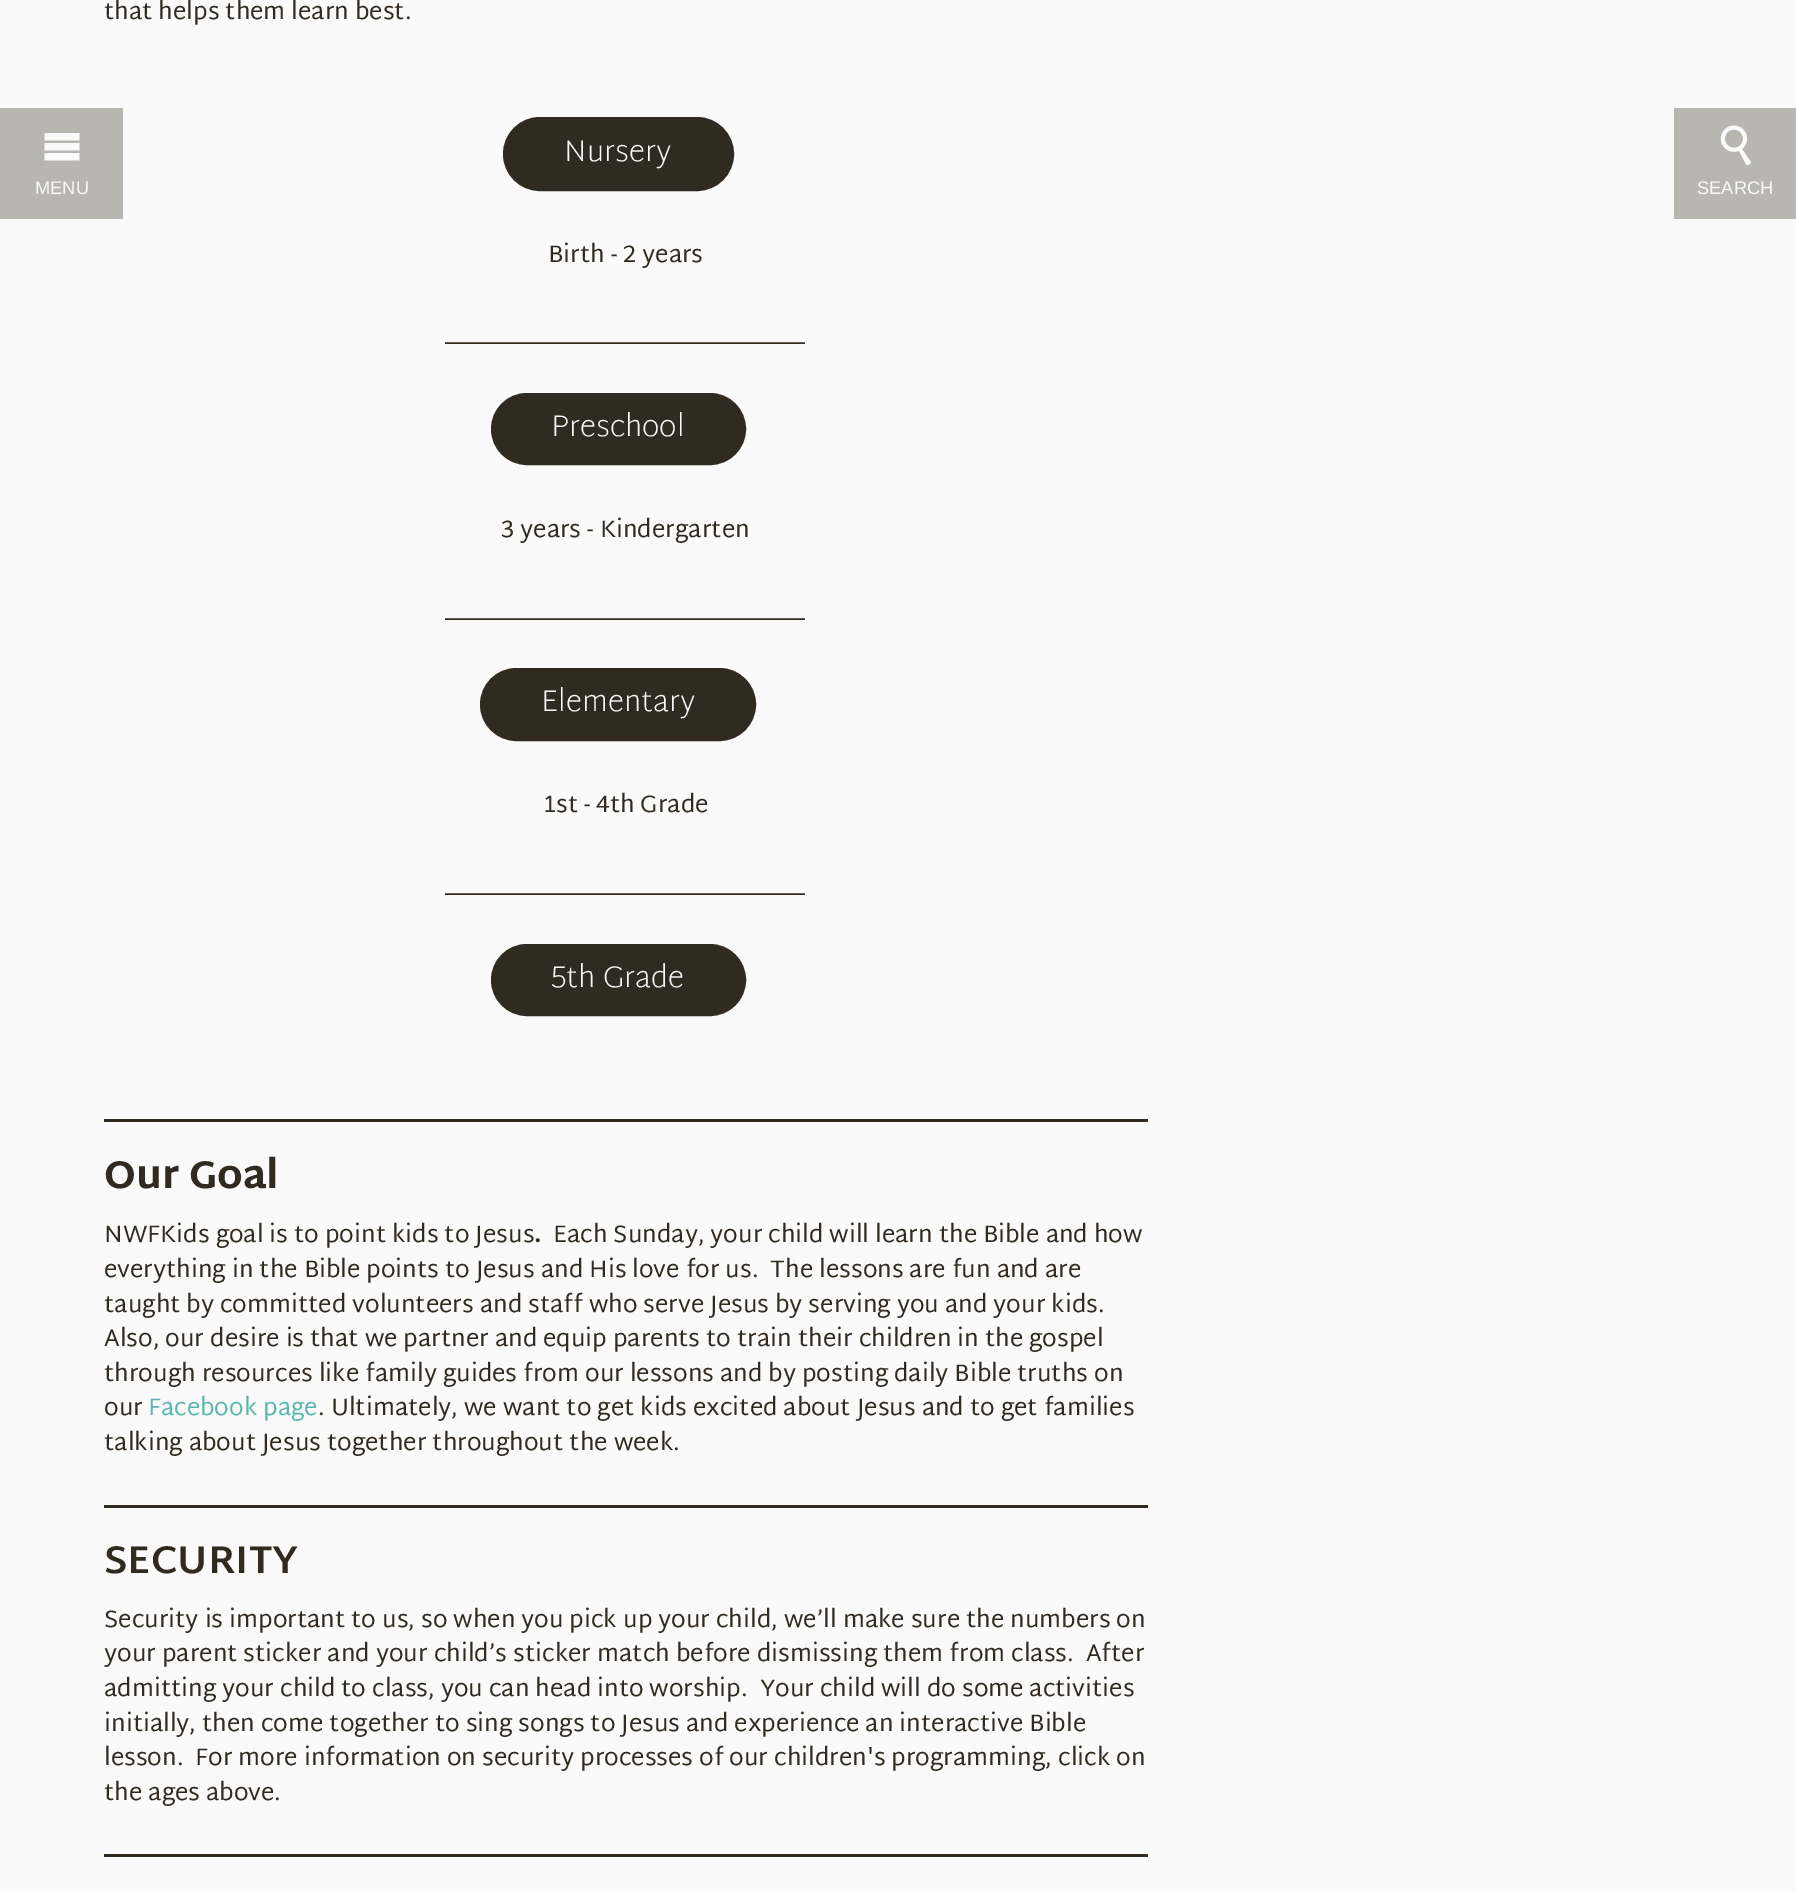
%!PS-Adobe-3.0
%%BoundingBox: 0 0 1796 1891
%%LanguageLevel: 3
%%Pages: 1
%%EndComments
%%BeginProlog
/setink { dup -16 bitshift 255 div exch dup -8 bitshift 255 and 255 div exch 255 and 255 div setrgbcolor } def
/usefont { [ exch dup neg 0 0 3 -1 roll 0 0 ] selectfont } def
/rrect { 5 dict begin { /r /h /w /y /x } { exch def } forall
  x r add y moveto x w add y 2 copy h add r arct x w add y h add x 1 index r arct
  x y h add x y r arct x y 2 copy exch w add exch r arct closepath end } def
/drawimage { 5 dict begin { /h /w /y /x /name } { exch def } forall
  gsave x y translate w h scale
  w h 8 [w 0 0 h 0 0] name (r) file false 3 colorimage grestore end } def
%%EndProlog
%%BeginSetup
<< /PageSize [1796 1891] >> setpagedevice
%%EndSetup
%%Page: 1 1
0 1891 translate 1 -1 scale
4 setmiterlimit
16#FAFAFA setink
0 0 1796 1891 rectfill
16#B8B6B1 setink
0 108 123 111 rectfill
16#FAFAFA setink
44.5 133 moveto 79.5 133 lineto 79.5 140.5 lineto 44.5 140.5 lineto closepath 44.5 143 moveto 79.5 143 lineto 79.5 150.5 lineto 44.5 150.5 lineto closepath 44.5 153 moveto 79.5 153 lineto 79.5 160.5 lineto 44.5 160.5 lineto closepath fill
/LiberationSans-Regular 18.25 usefont
35 194 moveto (MENU) show
/MartelSans-Regular 24 usefont
16#312A21 setink
104 19 moveto (that helps them learn best.) show
504 118 229 72 36 rrect gsave fill grestore
2 setlinewidth
stroke
/MartelSans-ExtraLight 30 usefont
16#FAFAFA setink
564 161 moveto (Nursery) show
/MartelSans-Regular 24 usefont
16#312A21 setink
548 262 moveto (Birth - 2 years) show
445 338 moveto (______________________________) show
492 394 253 70 35 rrect gsave fill grestore
stroke
/MartelSans-ExtraLight 30 usefont
16#FAFAFA setink
551 436 moveto (Preschool) show
/MartelSans-Regular 24 usefont
16#312A21 setink
501 537 moveto (3 years - Kindergarten) show
445 614 moveto (______________________________) show
481 669 274 71 35.5 rrect gsave fill grestore
stroke
/MartelSans-ExtraLight 30 usefont
16#FAFAFA setink
541 711 moveto (Elementary) show
/MartelSans-Regular 24 usefont
16#312A21 setink
543 812 moveto (1st - 4th Grade) show
445 889 moveto (______________________________) show
492 945 253 70 35 rrect gsave fill grestore
stroke
/MartelSans-ExtraLight 30 usefont
16#FAFAFA setink
551 987 moveto (5th Grade) show
16#312A21 setink
104 1119 1044 3 rectfill
/MartelSans-ExtraBold 39 usefont
104 1188 moveto (Our Goal) show
/MartelSans-Regular 24 usefont
104 1242 moveto (NWFKids goal is to point kids to Jesus) show
/MartelSans-Bold 24 usefont
534 1242 moveto (.) show
/MartelSans-Regular 24 usefont
[
    [(Each Sunday, your child will learn the Bible and how) 553 1242]
    [(everything in the Bible points to Jesus and His love for us.  The lessons are fun and are) 104 1277]
    [(taught by committed volunteers and staff who serve Jesus by serving you and your kids.) 104 1312]
    [(Also, our desire is that we partner and equip parents to train their children in the gospel) 104 1346]
    [(through resources like family guides from our lessons and by posting daily Bible truths on) 104 1381]
    [(our) 104 1415]
] { aload pop moveto show } forall
16#5AB7AF setink
148 1415 moveto (Facebook page) show
16#312A21 setink
318 1415 moveto (. Ultimately, we want to get kids excited about Jesus and to get families) show
104 1450 moveto (talking about Jesus together throughout the week.) show
104 1505 1044 3 rectfill
/MartelSans-Bold 39 usefont
104 1573 moveto (SECURITY) show
/MartelSans-Regular 24 usefont
[
    [(Security is important to us, so when you pick up your child, we’ll make sure the numbers on) 104 1627]
    [(your parent sticker and your child’s sticker match before dismissing them from class.  After) 104 1661]
    [(admitting your child to class, you can head into worship.  Your child will do some activities) 104 1696]
    [(initially, then come together to sing songs to Jesus and experience an interactive Bible) 104 1731]
    [(lesson.  For more information on security processes of our children's programming, click on) 104 1765]
    [(the ages above.) 104 1800]
] { aload pop moveto show } forall
104 1854 1044 3 rectfill
16#B8B6B1 setink
1674 108 122 111 rectfill
(img1.raw) 1720 125 32 41 drawimage
/LiberationSans-Regular 18.25 usefont
16#FAFAFA setink
1697 194 moveto (SEARCH) show
showpage
%%EOF
